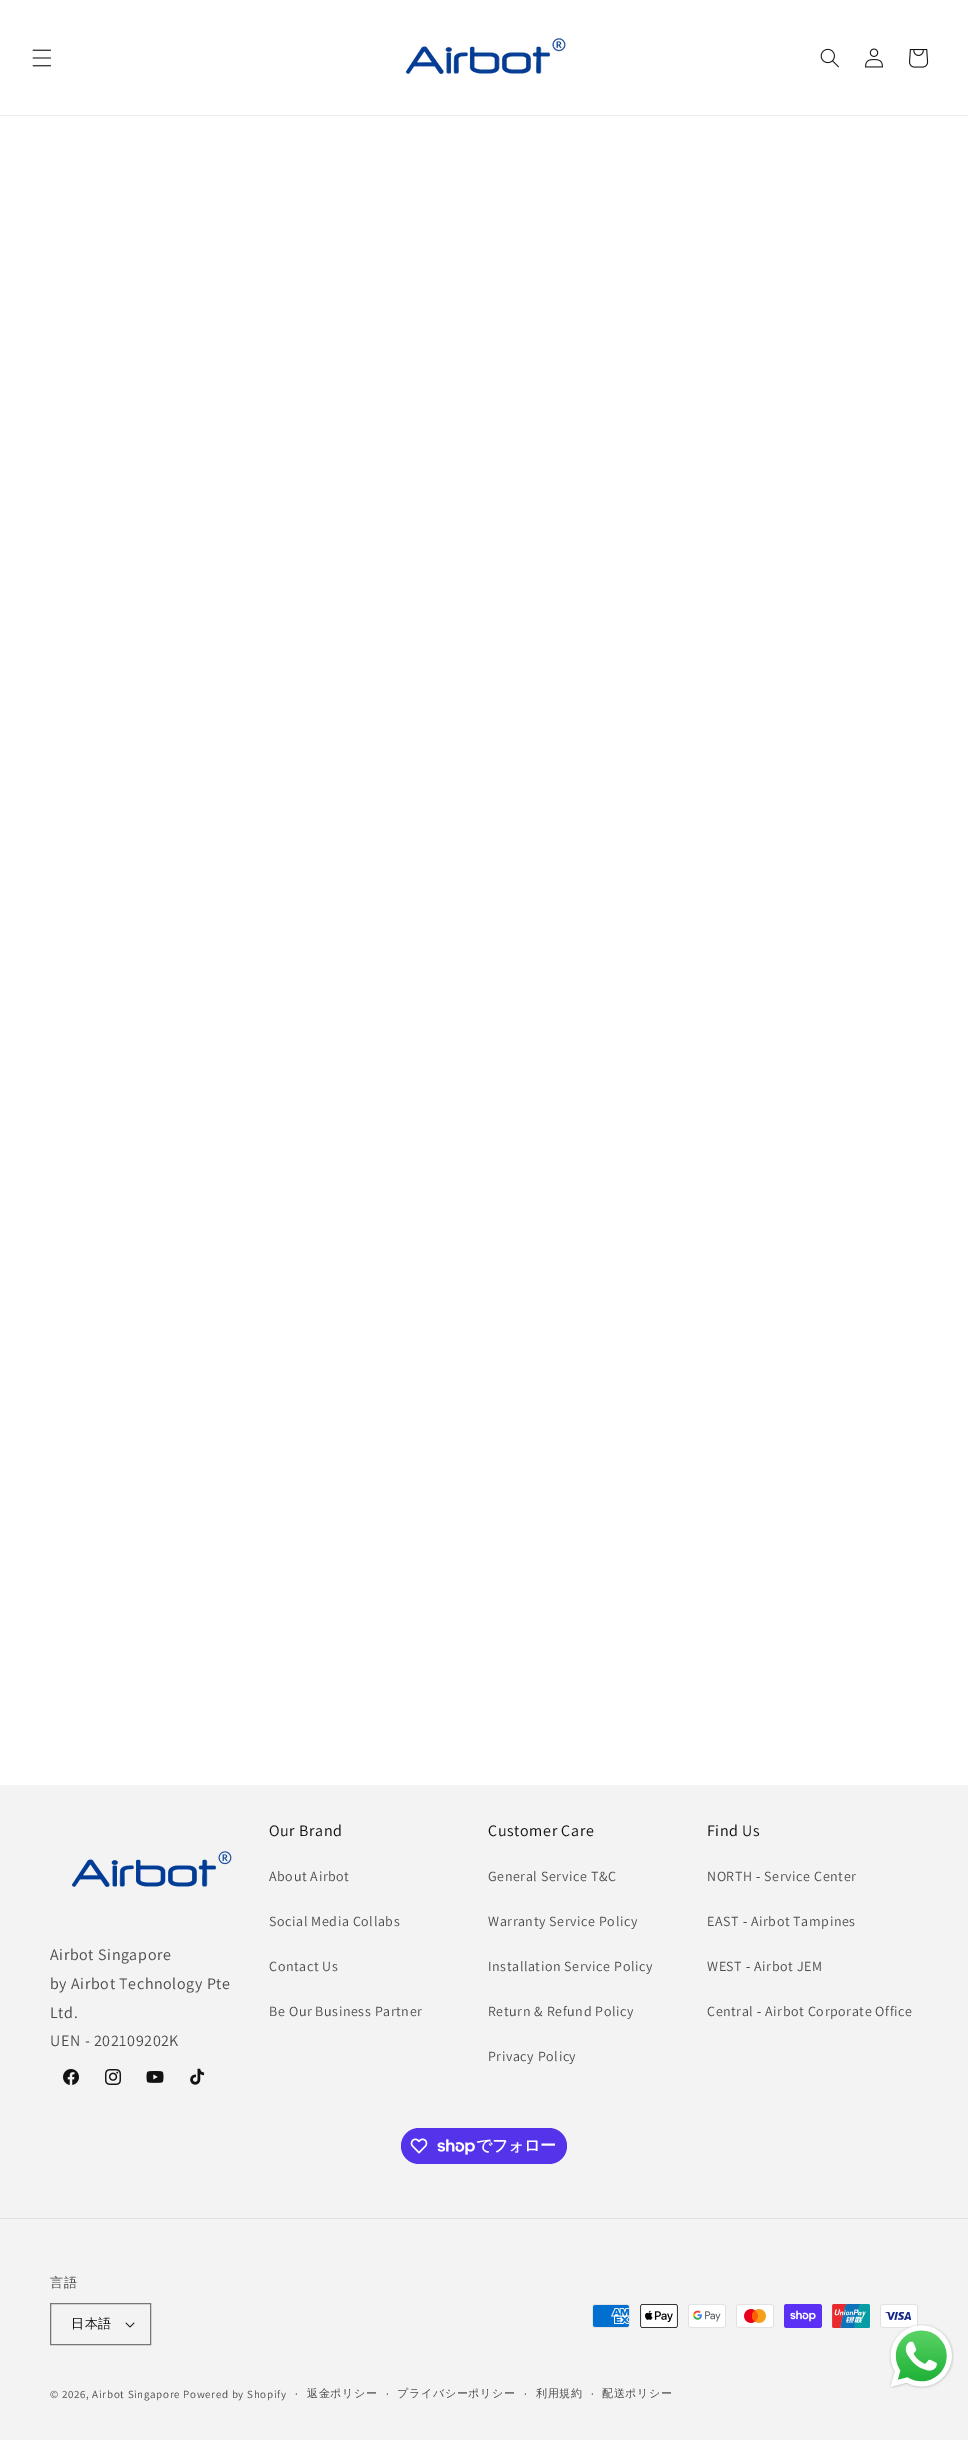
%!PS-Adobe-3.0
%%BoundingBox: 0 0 968 2440
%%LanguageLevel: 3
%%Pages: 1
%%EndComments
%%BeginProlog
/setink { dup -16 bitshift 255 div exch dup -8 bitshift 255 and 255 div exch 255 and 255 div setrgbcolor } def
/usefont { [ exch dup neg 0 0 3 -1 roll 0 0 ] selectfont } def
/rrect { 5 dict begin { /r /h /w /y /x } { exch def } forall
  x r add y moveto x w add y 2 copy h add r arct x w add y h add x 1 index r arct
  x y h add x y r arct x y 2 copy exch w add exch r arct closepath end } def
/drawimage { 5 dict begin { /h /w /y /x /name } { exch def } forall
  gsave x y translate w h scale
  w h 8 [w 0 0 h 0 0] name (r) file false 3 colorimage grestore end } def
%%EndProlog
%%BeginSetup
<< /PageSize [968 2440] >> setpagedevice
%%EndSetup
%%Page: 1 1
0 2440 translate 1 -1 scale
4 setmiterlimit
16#FFFFFF setink
0 0 968 2440 rectfill
16#ECECEC setink
0 115 968 1 rectfill
(img1.raw) 32 49 20 18 drawimage
(img2.raw) 405 38 161 37 drawimage
(img3.raw) 820 48 19 20 drawimage
(img4.raw) 865 48 18 20 drawimage
(img5.raw) 909 49 20 19 drawimage
16#F3F3F3 setink
0 1785 968 655 rectfill
(img6.raw) 72 1851 160 36 drawimage
/Assistant-Regular 16 usefont
16#4A4A4A setink
50 1960 moveto 0.6 0 (Airbot Singapore) ashow
50 1989 moveto 0.6 0 (by Airbot Technology Pte) ashow
50 2018 moveto 0.6 0 (Ltd.) ashow
50 2046 moveto 0.6 0 (UEN - 202109202K) ashow
(img7.raw) 63 2069 16 16 drawimage
(img8.raw) 105 2069 16 16 drawimage
(img9.raw) 146 2071 18 12 drawimage
(img10.raw) 190 2068 15 17 drawimage
16#121212 setink
269 1836 moveto 0.6 0 (Our Brand) ashow
/Assistant-Regular 14 usefont
16#4A4A4A setink
269 1881 moveto 0.6 0 (About Airbot) ashow
269 1926 moveto 0.6 0 (Social Media Collabs) ashow
269 1971 moveto 0.6 0 (Contact Us) ashow
269 2016 moveto 0.6 0 (Be Our Business Partner) ashow
/Assistant-Regular 16 usefont
16#121212 setink
488 1836 moveto 0.6 0 (Customer Care) ashow
/Assistant-Regular 14 usefont
16#4A4A4A setink
488 1881 moveto 0.6 0 (General Service T&C) ashow
488 1926 moveto 0.6 0 (Warranty Service Policy) ashow
488 1971 moveto 0.6 0 (Installation Service Policy) ashow
488 2016 moveto 0.6 0 (Return & Refund Policy) ashow
488 2061 moveto 0.6 0 (Privacy Policy) ashow
/Assistant-Regular 16 usefont
16#121212 setink
707 1836 moveto 0.6 0 (Find Us) ashow
/Assistant-Regular 14 usefont
16#4A4A4A setink
707 1881 moveto 0.6 0 (NORTH - Service Center) ashow
707 1926 moveto 0.6 0 (EAST - Airbot Tampines) ashow
707 1971 moveto 0.6 0 (WEST - Airbot JEM) ashow
707 2016 moveto 0.6 0 (Central - Airbot Corporate Office) ashow
16#5433EB setink
401 2128 166 36 18 rrect fill
(img11.raw) 410 2138 18 16 drawimage
(img12.raw) 437 2139 38 16 drawimage
/WenQuanYiZenHei-Bold 16 usefont
16#FFFFFF setink
476 2151 moveto -0.5 0 (でフォロー) ashow
16#E1E1E1 setink
0 2218 968 1 rectfill
/WenQuanYiZenHei-Medium 13 usefont
16#4A4A4A setink
50 2287 moveto 0.5 0 (言語) ashow
(img13.raw) 125 2322 10 6 drawimage
16#777777 setink
50.5 2303.5 100 41 rectstroke
16#121212 setink
71 2328 moveto 0.5 0 (日本語) ashow
(img14.raw) 592 2304 38 24 drawimage
(img15.raw) 640 2304 38 24 drawimage
(img16.raw) 688 2304 38 24 drawimage
(img17.raw) 736 2304 38 24 drawimage
(img18.raw) 784 2304 38 24 drawimage
(img19.raw) 832 2304 38 24 drawimage
(img20.raw) 880 2304 38 24 drawimage
/Assistant-Regular 11 usefont
16#4A4A4A setink
50 2398 moveto 0.7 0 (© 2026, Airbot Singapore Powered by Shopify) ashow
/Assistant-Regular 12 usefont
295 2398 moveto 0.7 0 (·) ashow
/WenQuanYiZenHei-Medium 11 usefont
307 2397 moveto 0.7 0 (返金ポリシー) ashow
/Assistant-Regular 12 usefont
386 2398 moveto 0.7 0 (·) ashow
/WenQuanYiZenHei-Medium 11 usefont
397 2397 moveto 0.7 0 (プライバシーポリシー) ashow
/Assistant-Regular 12 usefont
524 2398 moveto 0.7 0 (·) ashow
/WenQuanYiZenHei-Medium 11 usefont
536 2397 moveto 0.7 0 (利用規約) ashow
/Assistant-Regular 12 usefont
591 2398 moveto 0.7 0 (·) ashow
/WenQuanYiZenHei-Medium 11 usefont
602 2397 moveto 0.7 0 (配送ポリシー) ashow
(img21.raw) 889 2324 65 65 drawimage
showpage
%%EOF
